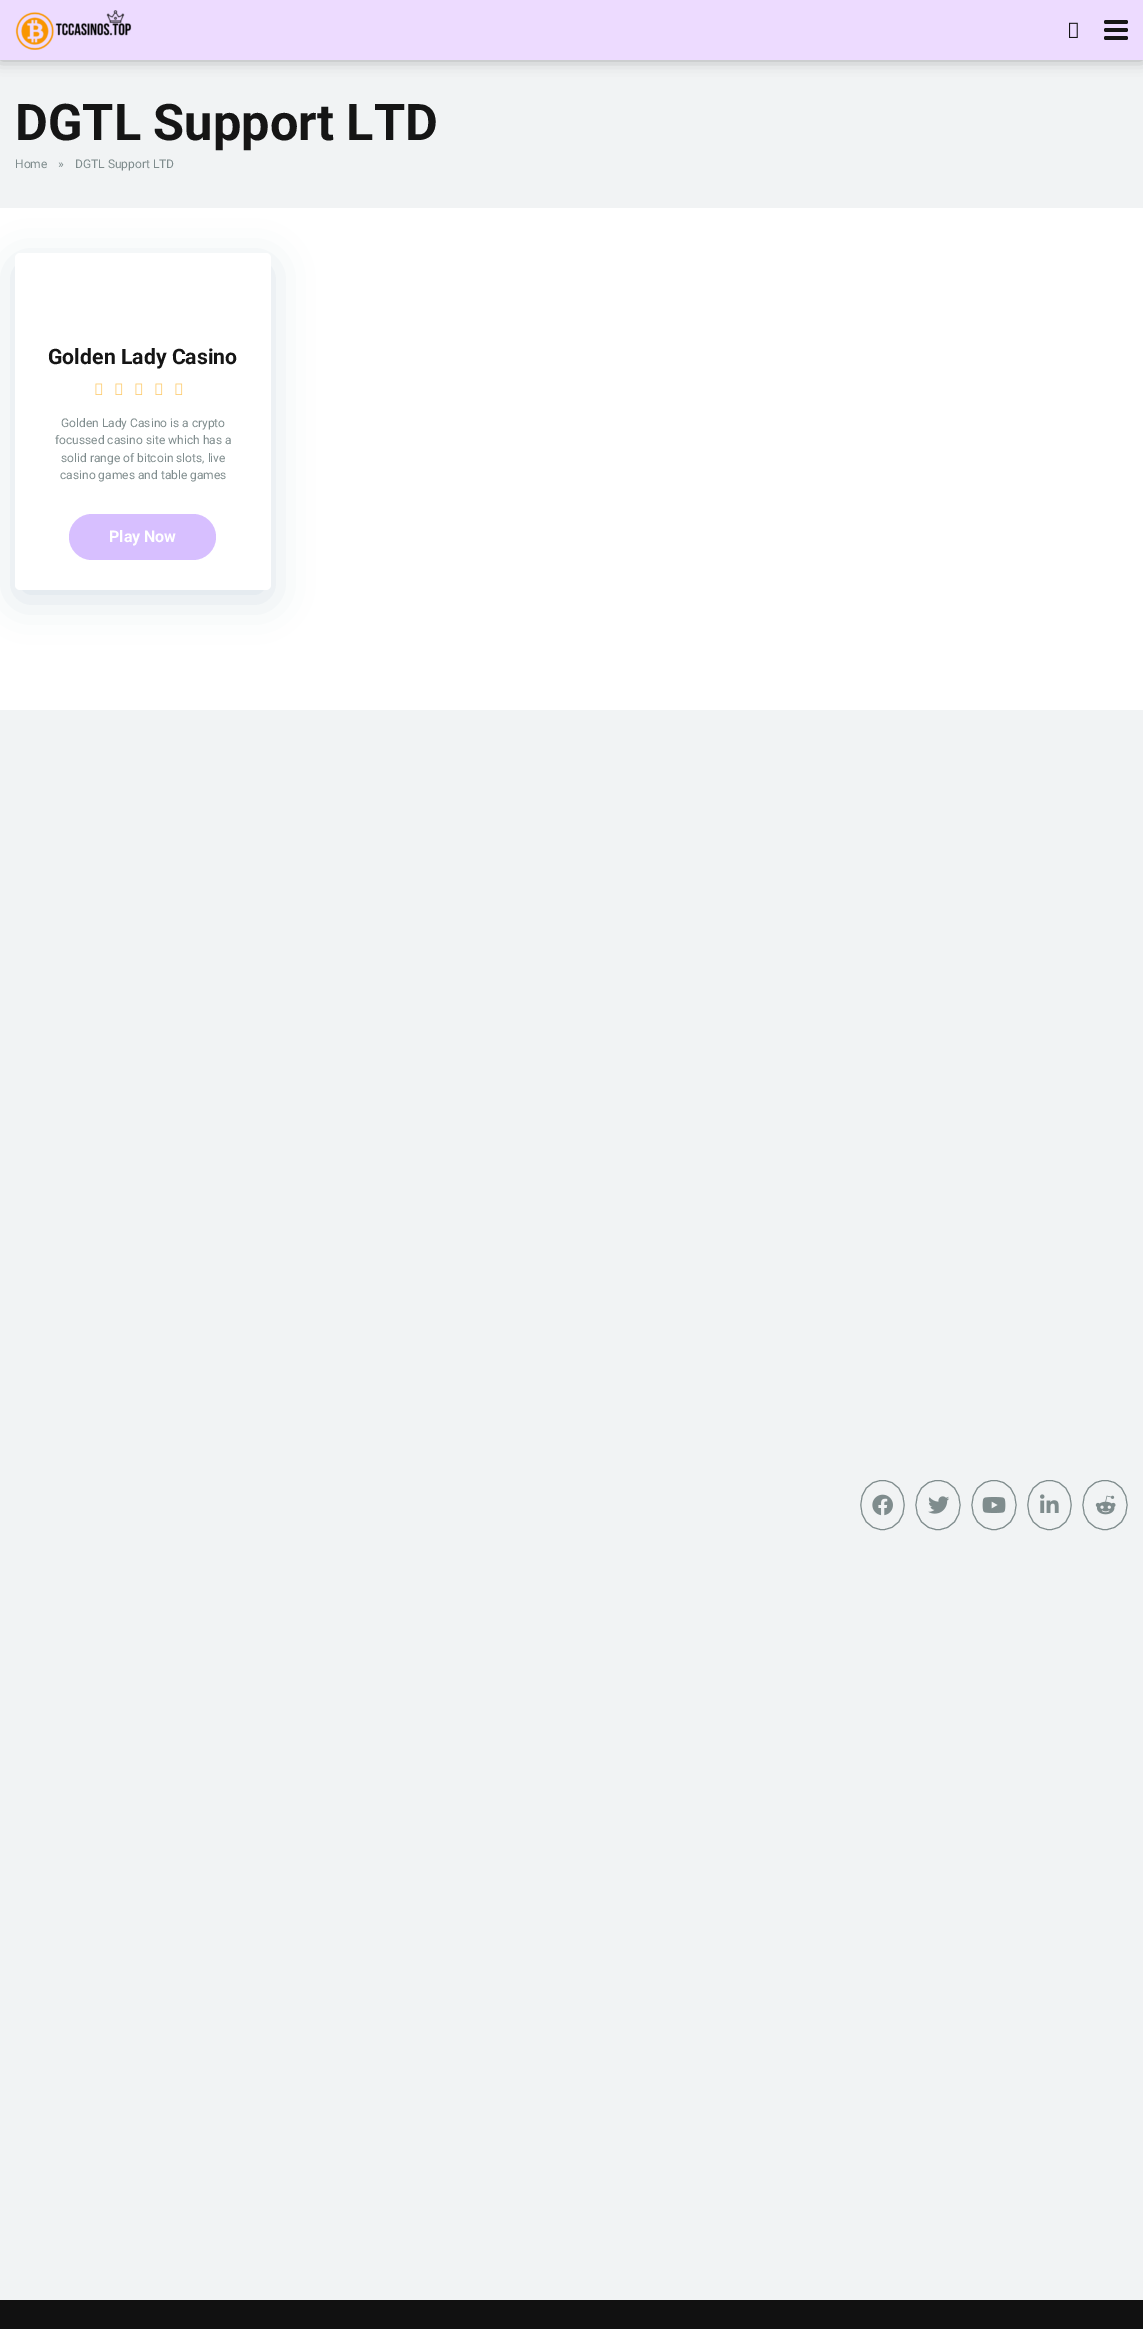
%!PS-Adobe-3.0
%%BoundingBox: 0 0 1143 2329
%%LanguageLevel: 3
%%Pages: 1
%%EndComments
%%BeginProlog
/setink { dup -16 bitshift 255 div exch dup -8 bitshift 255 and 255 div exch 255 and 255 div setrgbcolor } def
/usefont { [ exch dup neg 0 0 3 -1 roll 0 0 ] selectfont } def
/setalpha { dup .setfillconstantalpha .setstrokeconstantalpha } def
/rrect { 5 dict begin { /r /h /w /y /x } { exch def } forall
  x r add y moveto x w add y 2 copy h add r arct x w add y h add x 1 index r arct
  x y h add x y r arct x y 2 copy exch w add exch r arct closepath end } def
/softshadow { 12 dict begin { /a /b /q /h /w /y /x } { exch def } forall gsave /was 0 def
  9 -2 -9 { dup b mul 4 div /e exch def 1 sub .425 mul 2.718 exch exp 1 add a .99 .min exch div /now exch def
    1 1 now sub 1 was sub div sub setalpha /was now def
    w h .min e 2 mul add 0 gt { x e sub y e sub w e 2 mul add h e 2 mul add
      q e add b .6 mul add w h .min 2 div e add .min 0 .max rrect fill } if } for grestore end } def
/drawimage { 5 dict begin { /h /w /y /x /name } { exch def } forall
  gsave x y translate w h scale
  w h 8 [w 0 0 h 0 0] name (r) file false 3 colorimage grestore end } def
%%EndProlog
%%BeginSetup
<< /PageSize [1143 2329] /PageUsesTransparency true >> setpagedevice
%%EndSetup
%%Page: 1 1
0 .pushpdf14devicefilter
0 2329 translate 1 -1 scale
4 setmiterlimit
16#FFFFFF setink
0 0 1143 2329 rectfill
16#F1F3F4 setink
0 60 1143 148 rectfill
16#000000 setink
0 0 1143 60 0 7.5 0.3 softshadow
16#EDDBFF setink
0 0 1143 60 rectfill
(img1.raw) 15 10 117 40 drawimage
(img2.raw) 1069 22 9 16 drawimage
16#151515 setink
1104 20 24 4 2 rrect fill
1104 28 24 4 2 rrect fill
1104 36 24 4 2 rrect fill
/Roboto-Bold 50.5 usefont
15 140 moveto (DGTL Support LTD) show
/Roboto-Regular 12 usefont
16#7F8C8D setink
[
    [(Home) 15 168]
    [(») 58 168]
    [(DGTL Support LTD) 75 168]
] { aload pop moveto show } forall
16#6D8DAD setink
15 263 256 337 5 20 0.25 softshadow
16#FFFFFF setink
15 253 256 337 5 rrect fill
/Roboto-Bold 21.25 usefont
16#151515 setink
48 364 moveto (Golden Lady Casino) show
(img3.raw) 95 383 8 12 drawimage
(img3.raw) 115 383 8 12 drawimage
(img3.raw) 135 383 8 12 drawimage
(img3.raw) 155 383 8 12 drawimage
(img3.raw) 175 383 8 12 drawimage
/Roboto-Regular 12 usefont
16#7F8C8D setink
[
    [(Golden Lady Casino is a crypto) 61 427]
    [(focussed casino site which has a) 55 444]
    [(solid range of bitcoin slots, live) 61 462]
    [(casino games and table games) 60 479]
] { aload pop moveto show } forall
16#D7BFFF setink
69 514 147 46 23 rrect fill
/Roboto-Bold 16 usefont
16#FFFFFF setink
109 542 moveto (Play Now) show
16#F1F3F4 setink
0 710 1143 1590 rectfill
16#7F8C8D setink
882.5 1480.5 moveto 911.5 1480.5 911.5 1529.5 882.5 1529.5 curveto 853.5 1529.5 853.5 1480.5 882.5 1480.5 curveto closepath stroke
(img4.raw) 872 1494 21 22 drawimage
938 1480.5 moveto 967.5 1480.5 967.5 1529.5 938 1529.5 curveto 908.5 1529.5 908.5 1480.5 938 1480.5 curveto closepath stroke
(img5.raw) 928 1496 22 18 drawimage
994 1480.5 moveto 1023.5 1480.5 1023.5 1529.5 994 1529.5 curveto 964.5 1529.5 964.5 1480.5 994 1480.5 curveto closepath stroke
(img6.raw) 982 1497 24 16 drawimage
1049.5 1480.5 moveto 1078.5 1480.5 1078.5 1529.5 1049.5 1529.5 curveto 1020.5 1529.5 1020.5 1480.5 1049.5 1480.5 curveto closepath stroke
(img7.raw) 1040 1494 19 19 drawimage
1105 1480.5 moveto 1134.5 1480.5 1134.5 1529.5 1105 1529.5 curveto 1075.5 1529.5 1075.5 1480.5 1105 1480.5 curveto closepath stroke
(img8.raw) 1095 1495 21 20 drawimage
16#111111 setink
0 2300 1143 29 rectfill
.poppdf14devicefilter showpage
%%EOF
